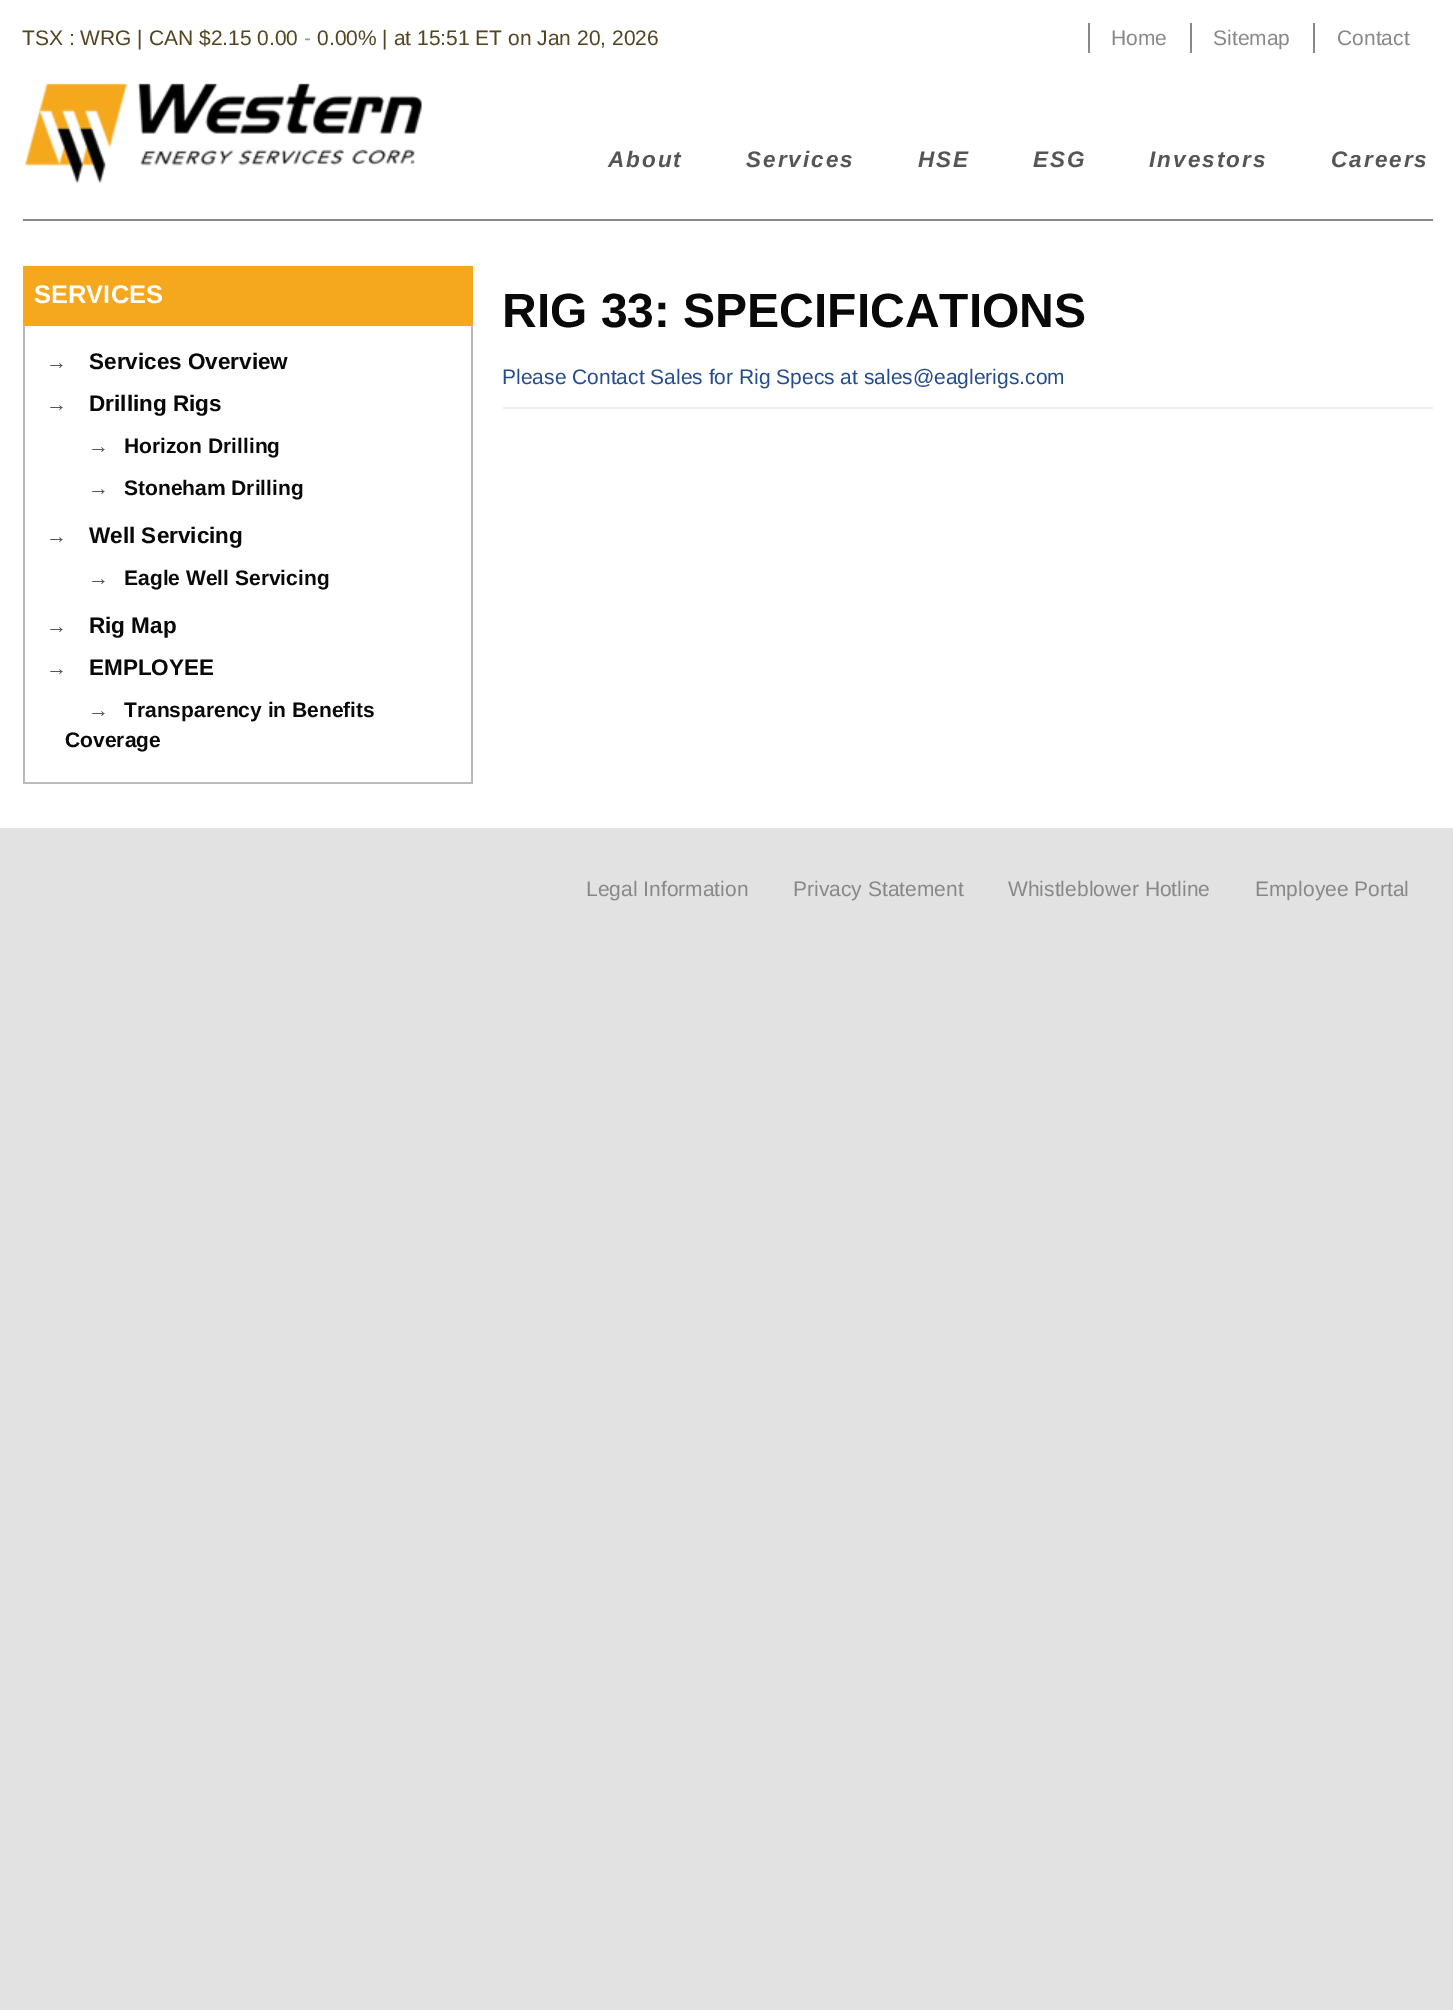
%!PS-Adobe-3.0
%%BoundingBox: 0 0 1453 2010
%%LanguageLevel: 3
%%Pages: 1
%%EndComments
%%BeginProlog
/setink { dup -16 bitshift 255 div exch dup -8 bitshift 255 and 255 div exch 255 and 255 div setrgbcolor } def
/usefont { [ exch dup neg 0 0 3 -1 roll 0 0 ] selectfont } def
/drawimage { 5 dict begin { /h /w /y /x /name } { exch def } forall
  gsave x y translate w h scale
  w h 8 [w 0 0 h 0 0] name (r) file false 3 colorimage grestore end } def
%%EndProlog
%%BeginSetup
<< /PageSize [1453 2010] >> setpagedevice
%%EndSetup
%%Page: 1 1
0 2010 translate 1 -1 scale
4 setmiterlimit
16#E2E2E2 setink
0 0 1453 2010 rectfill
16#FFFFFF setink
0 0 1453 828 rectfill
/LiberationSans-Regular 21 usefont
16#554422 setink
22 45 moveto (TSX : WRG | CAN $2.15 0.00) show
16#999999 setink
304 45 moveto (-) show
16#554422 setink
317 45 moveto (0.00% | at 15:51 ET on Jan 20, 2026) show
16#888888 setink
1088 23 2 30 rectfill
1111 45 moveto (Home) show
1190 23 2 30 rectfill
1213 45 moveto (Sitemap) show
1313 23 2 30 rectfill
1337 45 moveto (Contact) show
23 219 1410 2 rectfill
(img1.raw) 25 83 397 101 drawimage
/LiberationSans-BoldItalic 22.5 usefont
16#555555 setink
608 167 moveto 2 0 (About) ashow
746 167 moveto 2 0 (Services) ashow
918 167 moveto 2 0 (HSE) ashow
1033 167 moveto 2 0 (ESG) ashow
1149 167 moveto 2 0 (Investors) ashow
1331 167 moveto 2 0 (Careers) ashow
16#F5A81D setink
23 266 450 60 rectfill
/LiberationSans-Bold 25.5 usefont
16#FFFFFF setink
34 303 moveto (SERVICES) show
[
    [471 326 2 457 16#BBBBBB]
    [23 782 450 2 16#BBBBBB]
    [23 326 2 457 16#BBBBBB]
] { aload pop setink rectfill } forall
/LiberationSans-Regular 21 usefont
16#555555 setink
46 369 moveto (→) show
/LiberationSans-Bold 22.5 usefont
16#090909 setink
89 369 moveto (Services Overview) show
/LiberationSans-Regular 21 usefont
16#555555 setink
46 411 moveto (→) show
/LiberationSans-Bold 22.5 usefont
16#090909 setink
89 411 moveto (Drilling Rigs) show
/LiberationSans-Regular 21 usefont
16#555555 setink
88 453 moveto (→) show
/LiberationSans-Bold 21 usefont
16#090909 setink
124 453 moveto (Horizon Drilling) show
/LiberationSans-Regular 21 usefont
16#555555 setink
88 495 moveto (→) show
/LiberationSans-Bold 21 usefont
16#090909 setink
124 495 moveto (Stoneham Drilling) show
/LiberationSans-Regular 21 usefont
16#555555 setink
46 543 moveto (→) show
/LiberationSans-Bold 22.5 usefont
16#090909 setink
89 543 moveto (Well Servicing) show
/LiberationSans-Regular 21 usefont
16#555555 setink
88 585 moveto (→) show
/LiberationSans-Bold 21 usefont
16#090909 setink
124 585 moveto (Eagle Well Servicing) show
/LiberationSans-Regular 21 usefont
16#555555 setink
46 633 moveto (→) show
/LiberationSans-Bold 22.5 usefont
16#090909 setink
89 633 moveto (Rig Map) show
/LiberationSans-Regular 21 usefont
16#555555 setink
46 675 moveto (→) show
/LiberationSans-Bold 22.5 usefont
16#090909 setink
89 675 moveto (EMPLOYEE) show
/LiberationSans-Regular 21 usefont
16#555555 setink
88 717 moveto (→) show
/LiberationSans-Bold 21 usefont
16#090909 setink
124 717 moveto (Transparency in Benefits) show
65 747 moveto (Coverage) show
/LiberationSans-Bold 48 usefont
502 327 moveto (RIG 33: SPECIFICATIONS) show
/LiberationSans-Regular 21 usefont
16#254D8C setink
502 384 moveto (Please Contact Sales for Rig Specs at sales@eaglerigs.com) show
16#EEEEEE setink
503 407 930 2 rectfill
16#888888 setink
[
    [(Legal Information) 586 896]
    [(Privacy Statement) 793 896]
    [(Whistleblower Hotline) 1008 896]
    [(Employee Portal) 1255 896]
] { aload pop moveto show } forall
showpage
%%EOF
